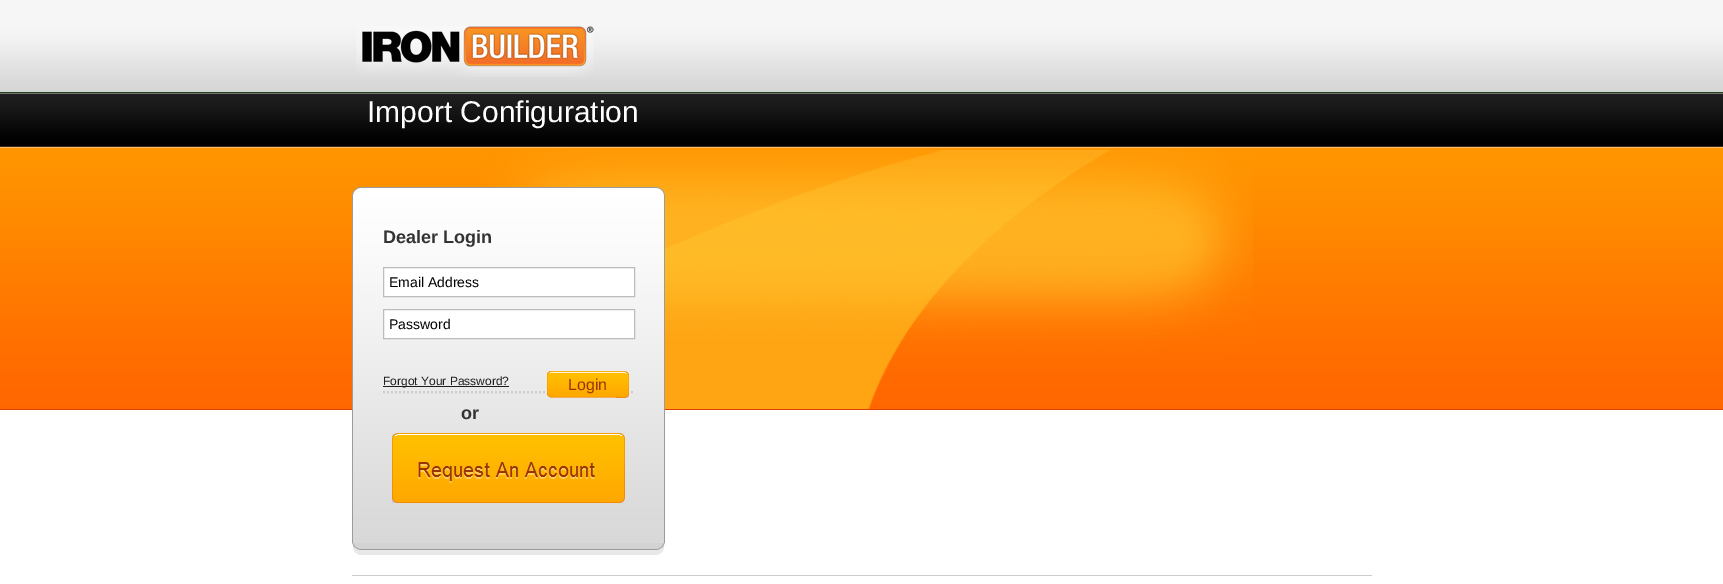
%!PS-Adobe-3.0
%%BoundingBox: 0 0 1723 584
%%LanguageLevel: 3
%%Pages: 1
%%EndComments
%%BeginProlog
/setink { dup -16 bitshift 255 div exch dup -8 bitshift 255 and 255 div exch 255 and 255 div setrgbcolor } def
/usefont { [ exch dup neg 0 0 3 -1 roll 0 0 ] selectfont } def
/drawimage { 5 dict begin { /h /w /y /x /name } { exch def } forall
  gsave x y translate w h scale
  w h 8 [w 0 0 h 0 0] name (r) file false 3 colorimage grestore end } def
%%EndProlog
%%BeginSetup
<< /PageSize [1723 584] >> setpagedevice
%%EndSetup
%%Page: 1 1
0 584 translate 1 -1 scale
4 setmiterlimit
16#FFFFFF setink
0 0 1723 584 rectfill
(img1.raw) 0 0 1723 410 drawimage
(img2.raw) 479 150 774 259 drawimage
(img3.raw) 356 26 238 51 drawimage
/LiberationSans-Regular 30 usefont
367 122 moveto (Import Configuration) show
(img4.raw) 352 187 313 10 drawimage
(img5.raw) 353 197 311 346 drawimage
16#9B9B9B setink
664 197 1 346 rectfill
352 197 1 346 rectfill
/LiberationSans-Bold 18 usefont
16#333333 setink
383 243 moveto (Dealer Login) show
16#FFFFFF setink
383.5 267.5 moveto 634.5 267.5 lineto 634.5 296.5 lineto 383.5 296.5 lineto closepath gsave fill grestore
16#BCBCBC setink
stroke
/LiberationSans-Regular 14 usefont
16#000000 setink
389 287 moveto (Email Address) show
16#FFFFFF setink
383.5 309.5 moveto 634.5 309.5 lineto 634.5 338.5 lineto 383.5 338.5 lineto closepath gsave fill grestore
16#BCBCBC setink
stroke
16#000000 setink
389 329 moveto (Password) show
16#1E1E1E setink
383 386 126 1 rectfill
/LiberationSans-Regular 12 usefont
383 385 moveto (Forgot Your Password?) show
16#CCCCCC setink
2 setlinewidth
[2 2] 0 setdash
383 392 moveto 634 392 lineto stroke
(img6.raw) 616 371 13 27 drawimage
(img7.raw) 547 371 74 27 drawimage
/LiberationSans-Regular 16 usefont
16#973601 setink
568 390 moveto (Login) show
/LiberationSans-Bold 18 usefont
16#333333 setink
461 419 moveto (or) show
(img8.raw) 392 433 233 70 drawimage
(img9.raw) 352 543 313 12 drawimage
16#CCCCCC setink
352 575 1020 1 rectfill
showpage
%%EOF
